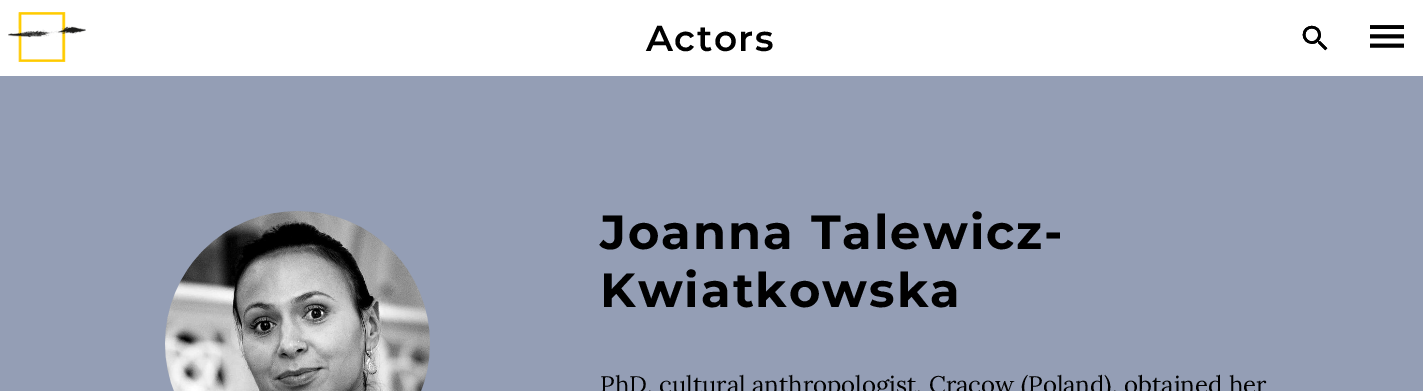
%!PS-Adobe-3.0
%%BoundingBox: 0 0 1423 391
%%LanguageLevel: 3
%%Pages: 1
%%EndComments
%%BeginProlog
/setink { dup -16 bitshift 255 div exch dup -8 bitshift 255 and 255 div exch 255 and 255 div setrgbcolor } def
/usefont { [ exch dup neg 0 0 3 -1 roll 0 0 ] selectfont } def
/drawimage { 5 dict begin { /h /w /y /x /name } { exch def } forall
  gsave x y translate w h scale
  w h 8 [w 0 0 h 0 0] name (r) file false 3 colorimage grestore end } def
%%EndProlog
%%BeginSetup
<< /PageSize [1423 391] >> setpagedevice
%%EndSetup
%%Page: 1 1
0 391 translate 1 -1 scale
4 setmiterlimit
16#FFFFFF setink
0 0 1423 391 rectfill
(img1.raw) 8 12 78 50 drawimage
/Montserrat-SemiBold 36 usefont
16#000000 setink
646 51 moveto 1.5 0 (Actors) ashow
(img2.raw) 1302 25 26 26 drawimage
(img3.raw) 1370 25 34 23 drawimage
16#949EB5 setink
0 76 1423 315 rectfill
(img4.raw) 165 211 265 180 drawimage
/Montserrat-Bold 48 usefont
16#000000 setink
600 249 moveto 2 0 (Joanna Talewicz-) ashow
600 307 moveto 2 0 (Kwiatkowska) ashow
/Lora-Regular 24 usefont
600 393 moveto (PhD, cultural anthropologist, Cracow \(Poland\), obtained her) show
showpage
%%EOF
